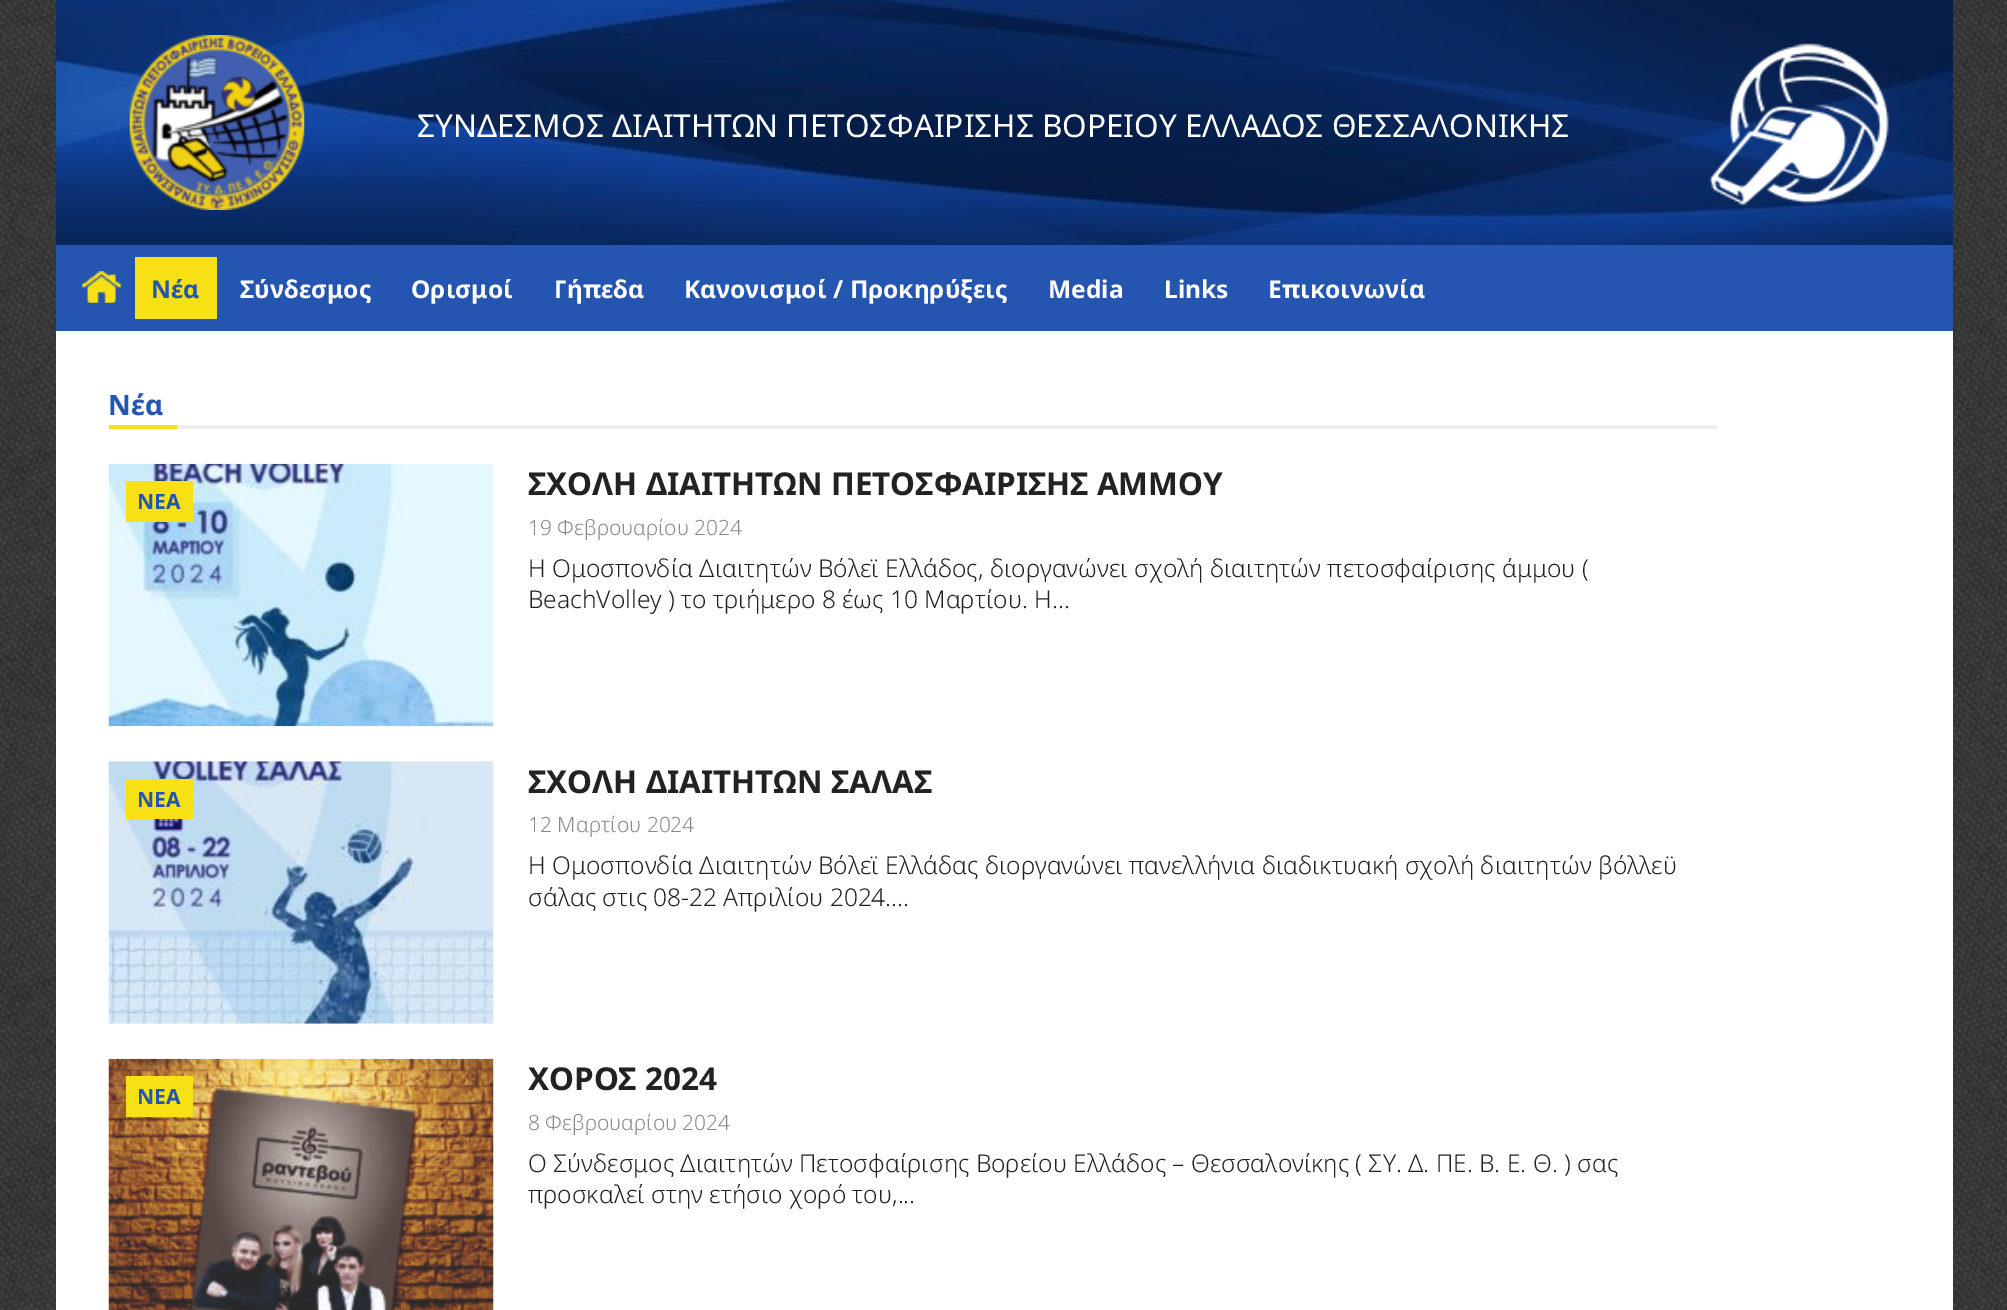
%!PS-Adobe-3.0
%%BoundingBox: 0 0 2007 1310
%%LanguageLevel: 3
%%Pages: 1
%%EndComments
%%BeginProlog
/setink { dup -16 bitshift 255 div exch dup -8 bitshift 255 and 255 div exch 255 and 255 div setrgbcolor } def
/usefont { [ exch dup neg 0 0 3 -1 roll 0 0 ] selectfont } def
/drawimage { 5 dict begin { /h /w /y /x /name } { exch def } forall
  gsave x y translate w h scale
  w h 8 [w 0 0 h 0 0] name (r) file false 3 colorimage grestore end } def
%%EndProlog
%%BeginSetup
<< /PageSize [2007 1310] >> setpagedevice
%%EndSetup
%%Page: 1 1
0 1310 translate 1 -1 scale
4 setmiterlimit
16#FFFFFF setink
0 0 2007 1310 rectfill
(img1.raw) 0 0 2007 1310 drawimage
(img2.raw) 56 0 1897 245 drawimage
(img3.raw) 129 35 176 175 drawimage
/NotoSans-Regular 31.5 usefont
417 137 moveto (ΣΥΝΔΕΣΜΟΣ ΔΙΑΙΤΗΤΩΝ ΠΕΤΟΣΦΑΙΡΙΣΗΣ ΒΟΡΕΙΟΥ ΕΛΛΑΔΟΣ ΘΕΣΣΑΛΟΝΙΚΗΣ) show
(img4.raw) 1709 43 180 163 drawimage
16#2355B1 setink
56 245 1897 86 rectfill
(img5.raw) 82 271 39 32 drawimage
16#F7E013 setink
135 257 82 62 rectfill
/NotoSans-Bold 24.5 usefont
16#2355B1 setink
151 298 moveto (Νέα) show
16#FFFFFF setink
[
    [(Σύνδεσμος) 240 298]
    [(Ορισμοί) 411 298]
    [(Γήπεδα) 554 298]
    [(Κανονισμοί / Προκηρύξεις) 684 298]
    [(Media) 1048 298]
    [(Links) 1164 298]
    [(Επικοινωνία) 1268 298]
] { aload pop moveto show } forall
[
    [56 331 1897 979 16#FFFFFF]
    [177 425 1540 4 16#EEEEEE]
    [109 425 68 4 16#F7E013]
] { aload pop setink rectfill } forall
/NotoSans-Bold 28 usefont
16#2355B1 setink
108 415 moveto (Νέα) show
/NotoSans-Bold 31.5 usefont
16#222222 setink
528 495 moveto (ΣΧΟΛΗ ΔΙΑΙΤΗΤΩΝ ΠΕΤΟΣΦΑΙΡΙΣΗΣ ΑΜΜΟΥ) show
(img6.raw) 108 463 386 264 drawimage
16#F7E013 setink
126 481 67 41 rectfill
/NotoSans-Bold 21 usefont
16#2355B1 setink
137 509 moveto (ΝΕΑ) show
/NotoSans-Light 21 usefont
16#888888 setink
528 535 moveto (19 Φεβρουαρίου 2024) show
/NotoSans-Light 24.5 usefont
16#222222 setink
528 577 moveto (Η Ομοσπονδία Διαιτητών Βόλεϊ Ελλάδος, διοργανώνει σχολή διαιτητών πετοσφαίρισης άμμου \() show
528 608 moveto (BeachVolley \) το τριήμερο 8 έως 10 Μαρτίου. Η...) show
/NotoSans-Bold 31.5 usefont
528 793 moveto (ΣΧΟΛΗ ΔΙΑΙΤΗΤΩΝ ΣΑΛΑΣ) show
(img7.raw) 108 761 386 263 drawimage
16#F7E013 setink
126 779 67 40 rectfill
/NotoSans-Bold 21 usefont
16#2355B1 setink
137 807 moveto (ΝΕΑ) show
/NotoSans-Light 21 usefont
16#888888 setink
528 832 moveto (12 Μαρτίου 2024) show
/NotoSans-Light 24.5 usefont
16#222222 setink
528 874 moveto (Η Ομοσπονδία Διαιτητών Βόλεϊ Ελλάδας διοργανώνει πανελλήνια διαδικτυακή σχολή διαιτητών βόλλεϋ) show
528 906 moveto (σάλας στις 08-22 Απριλίου 2024....) show
/NotoSans-Bold 31.5 usefont
528 1090 moveto (ΧΟΡΟΣ 2024) show
(img8.raw) 108 1058 386 252 drawimage
16#F7E013 setink
126 1076 67 41 rectfill
/NotoSans-Bold 21 usefont
16#2355B1 setink
137 1104 moveto (ΝΕΑ) show
/NotoSans-Light 21 usefont
16#888888 setink
528 1130 moveto (8 Φεβρουαρίου 2024) show
/NotoSans-Light 24.5 usefont
16#222222 setink
528 1172 moveto (Ο Σύνδεσμος Διαιτητών Πετοσφαίρισης Βορείου Ελλάδος – Θεσσαλονίκης \( ΣΥ. Δ. ΠΕ. Β. Ε. Θ. \) σας) show
528 1203 moveto (προσκαλεί στην ετήσιο χορό του,...) show
showpage
%%EOF
